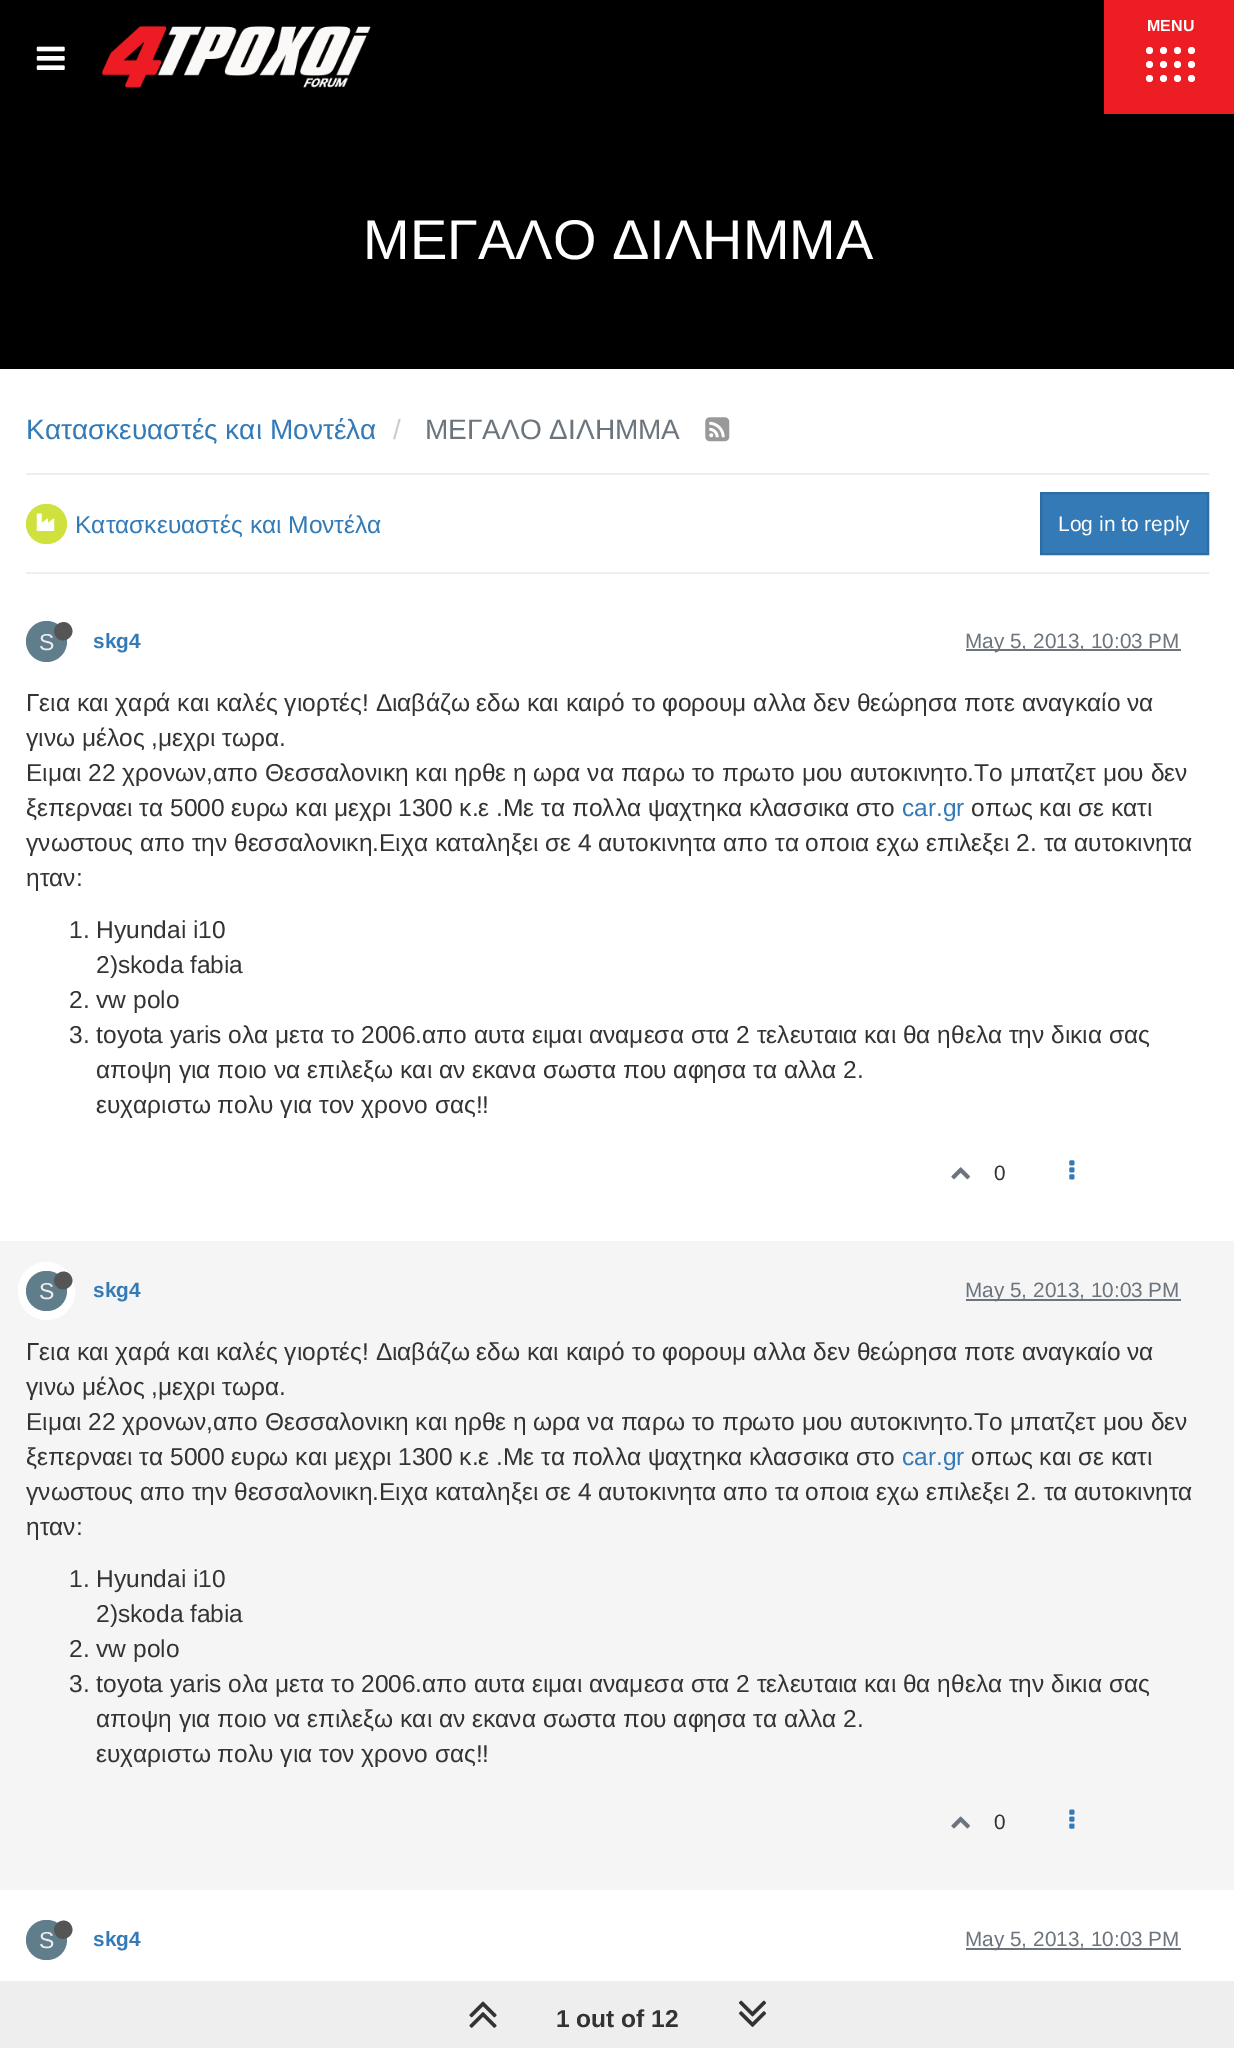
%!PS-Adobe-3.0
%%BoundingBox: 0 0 1234 2048
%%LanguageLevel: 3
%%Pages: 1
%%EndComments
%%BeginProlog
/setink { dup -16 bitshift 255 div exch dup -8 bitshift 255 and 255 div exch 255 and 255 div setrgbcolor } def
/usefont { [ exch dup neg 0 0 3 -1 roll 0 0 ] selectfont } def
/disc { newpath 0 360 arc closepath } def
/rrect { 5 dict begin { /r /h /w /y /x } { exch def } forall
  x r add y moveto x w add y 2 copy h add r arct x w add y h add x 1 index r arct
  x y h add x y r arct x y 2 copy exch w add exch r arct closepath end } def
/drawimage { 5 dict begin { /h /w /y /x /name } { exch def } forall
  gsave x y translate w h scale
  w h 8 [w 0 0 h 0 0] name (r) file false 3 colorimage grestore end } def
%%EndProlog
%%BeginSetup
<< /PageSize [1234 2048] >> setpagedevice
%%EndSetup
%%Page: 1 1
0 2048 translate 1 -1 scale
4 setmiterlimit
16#FFFFFF setink
0 0 1234 2048 rectfill
16#000000 setink
0 0 1104 114 rectfill
(img1.raw) 36 46 29 24 drawimage
(img2.raw) 101 26 270 62 drawimage
16#ED1D24 setink
1104 0 130 114 rectfill
/LiberationSans-Bold 16 usefont
16#FFFFFF setink
1147 31 moveto (MENU) show
1149.5 50.5 3.5 disc fill
1163.5 50.5 3.5 disc fill
1177.5 50.5 3.5 disc fill
1191.5 50.5 3.5 disc fill
1149.5 64.5 3.5 disc fill
1163.5 64.5 3.5 disc fill
1177.5 64.5 3.5 disc fill
1191.5 64.5 3.5 disc fill
1149.5 78.5 3.5 disc fill
1163.5 78.5 3.5 disc fill
1177.5 78.5 3.5 disc fill
1191.5 78.5 3.5 disc fill
16#000000 setink
0 114 1234 255 rectfill
/LiberationSans-Regular 56 usefont
16#FFFFFF setink
363 259 moveto (ΜΕΓΑΛΟ ΔΙΛΗΜΜΑ) show
/LiberationSans-Regular 28 usefont
16#337AB7 setink
26 439 moveto (Κατασκευαστές και Μοντέλα) show
16#CCCCCC setink
393 439 moveto (/) show
16#6C757D setink
425 439 moveto (ΜΕΓΑΛΟ ΔΙΛΗΜΜΑ) show
(img3.raw) 705 417 25 25 drawimage
16#EEEEEE setink
26 473 1183 2 rectfill
26 572 1183 2 rectfill
16#CEE13D setink
26 504 41 40 20 rrect fill
(img4.raw) 36 513 19 18 drawimage
/LiberationSans-Regular 24.5 usefont
16#337AB7 setink
75 533 moveto (Κατασκευαστές και Μοντέλα) show
1041 493 moveto 1208 493 lineto 1208 554 lineto 1041 554 lineto closepath gsave fill grestore
16#2E6DA4 setink
2 setlinewidth
stroke
/LiberationSans-Regular 21 usefont
16#FFFFFF setink
1058 531 moveto (Log in to reply) show
16#607D8B setink
46.5 641.5 20.5 disc fill
/LiberationSans-Regular 23 usefont
16#EEEEEE setink
39 650 moveto (S) show
16#555555 setink
71 626.5 moveto 77 637 61.5 646 55.5 636 curveto 49.5 625.5 65 616.5 71 626.5 curveto closepath fill
/LiberationSans-Bold 20.75 usefont
16#337AB7 setink
93 648 moveto (skg4) show
16#6C757D setink
966 649 215 2 rectfill
/LiberationSans-Regular 20.75 usefont
965 648 moveto (May 5, 2013, 10:03 PM) show
/LiberationSans-Regular 24.5 usefont
16#333333 setink
[
    [(Γεια και χαρά και καλές γιορτές! Διαβάζω εδω και καιρό το φορουμ αλλα δεν θεώρησα ποτε αναγκαίο να) 26 711]
    [(γινω μέλος ,μεχρι τωρα.) 26 746]
    [(Ειμαι 22 χρονων,απο Θεσσαλονικη και ηρθε η ωρα να παρω το πρωτο μου αυτοκινητο.Το μπατζετ μου δεν) 26 781]
    [(ξεπερναει τα 5000 ευρω και μεχρι 1300 κ.ε .Με τα πολλα ψαχτηκα κλασσικα στο) 26 816]
] { aload pop moveto show } forall
16#337AB7 setink
902 816 moveto (car.gr) show
16#333333 setink
[
    [(οπως και σε κατι) 971 816]
    [(γνωστους απο την θεσσαλονικη.Ειχα καταληξει σε 4 αυτοκινητα απο τα οποια εχω επιλεξει 2. τα αυτοκινητα) 26 851]
    [(ηταν:) 26 886]
    [(1. Hyundai i10) 69 938]
    [(2\)skoda fabia) 96 973]
    [(2. vw polo) 69 1008]
    [(3. toyota yaris ολα μετα το 2006.απο αυτα ειμαι αναμεσα στα 2 τελευταια και θα ηθελα την δικια σας) 69 1043]
    [(αποψη για ποιο να επιλεξω και αν εκανα σωστα που αφησα τα αλλα 2.) 96 1078]
    [(ευχαριστω πολυ για τον χρονο σας!!) 96 1113]
] { aload pop moveto show } forall
(img5.raw) 951 1167 19 13 drawimage
/LiberationSans-Regular 20.75 usefont
994 1180 moveto (0) show
(img6.raw) 1069 1160 6 20 drawimage
16#F5F5F5 setink
0 1241 1234 649 rectfill
16#FFFFFF setink
9 setlinewidth
22.5 1266.5 48 49 24 rrect stroke
16#607D8B setink
26 1271 41 40 20 rrect fill
/LiberationSans-Regular 23 usefont
16#EEEEEE setink
39 1299 moveto (S) show
16#555555 setink
71 1276 moveto 77 1286 61.5 1295 55.5 1285 curveto 49.5 1275 65 1266 71 1276 curveto closepath fill
/LiberationSans-Bold 20.75 usefont
16#337AB7 setink
93 1297 moveto (skg4) show
16#6C757D setink
966 1299 215 2 rectfill
/LiberationSans-Regular 20.75 usefont
965 1297 moveto (May 5, 2013, 10:03 PM) show
/LiberationSans-Regular 24.5 usefont
16#333333 setink
[
    [(Γεια και χαρά και καλές γιορτές! Διαβάζω εδω και καιρό το φορουμ αλλα δεν θεώρησα ποτε αναγκαίο να) 26 1360]
    [(γινω μέλος ,μεχρι τωρα.) 26 1395]
    [(Ειμαι 22 χρονων,απο Θεσσαλονικη και ηρθε η ωρα να παρω το πρωτο μου αυτοκινητο.Το μπατζετ μου δεν) 26 1430]
    [(ξεπερναει τα 5000 ευρω και μεχρι 1300 κ.ε .Με τα πολλα ψαχτηκα κλασσικα στο) 26 1465]
] { aload pop moveto show } forall
16#337AB7 setink
902 1465 moveto (car.gr) show
16#333333 setink
[
    [(οπως και σε κατι) 971 1465]
    [(γνωστους απο την θεσσαλονικη.Ειχα καταληξει σε 4 αυτοκινητα απο τα οποια εχω επιλεξει 2. τα αυτοκινητα) 26 1500]
    [(ηταν:) 26 1535]
    [(1. Hyundai i10) 69 1587]
    [(2\)skoda fabia) 96 1622]
    [(2. vw polo) 69 1657]
    [(3. toyota yaris ολα μετα το 2006.απο αυτα ειμαι αναμεσα στα 2 τελευταια και θα ηθελα την δικια σας) 69 1692]
    [(αποψη για ποιο να επιλεξω και αν εκανα σωστα που αφησα τα αλλα 2.) 96 1727]
    [(ευχαριστω πολυ για τον χρονο σας!!) 96 1762]
] { aload pop moveto show } forall
(img7.raw) 951 1816 19 13 drawimage
/LiberationSans-Regular 20.75 usefont
994 1829 moveto (0) show
(img8.raw) 1069 1809 6 20 drawimage
16#607D8B setink
26 1920 41 40 20 rrect fill
/LiberationSans-Regular 23 usefont
16#EEEEEE setink
39 1948 moveto (S) show
16#555555 setink
71 1925 moveto 77 1935.5 61.5 1944.5 55.5 1934.5 curveto 49.5 1924 65 1915 71 1925 curveto closepath fill
/LiberationSans-Bold 20.75 usefont
16#337AB7 setink
93 1946 moveto (skg4) show
16#6C757D setink
966 1948 215 2 rectfill
/LiberationSans-Regular 20.75 usefont
965 1946 moveto (May 5, 2013, 10:03 PM) show
16#EEEEEE setink
0 1981 1234 67 rectfill
(img9.raw) 469 2001 28 27 drawimage
/LiberationSans-Bold 24.5 usefont
16#333333 setink
556 2027 moveto (1 out of 12) show
(img10.raw) 738 2000 29 27 drawimage
showpage
%%EOF
